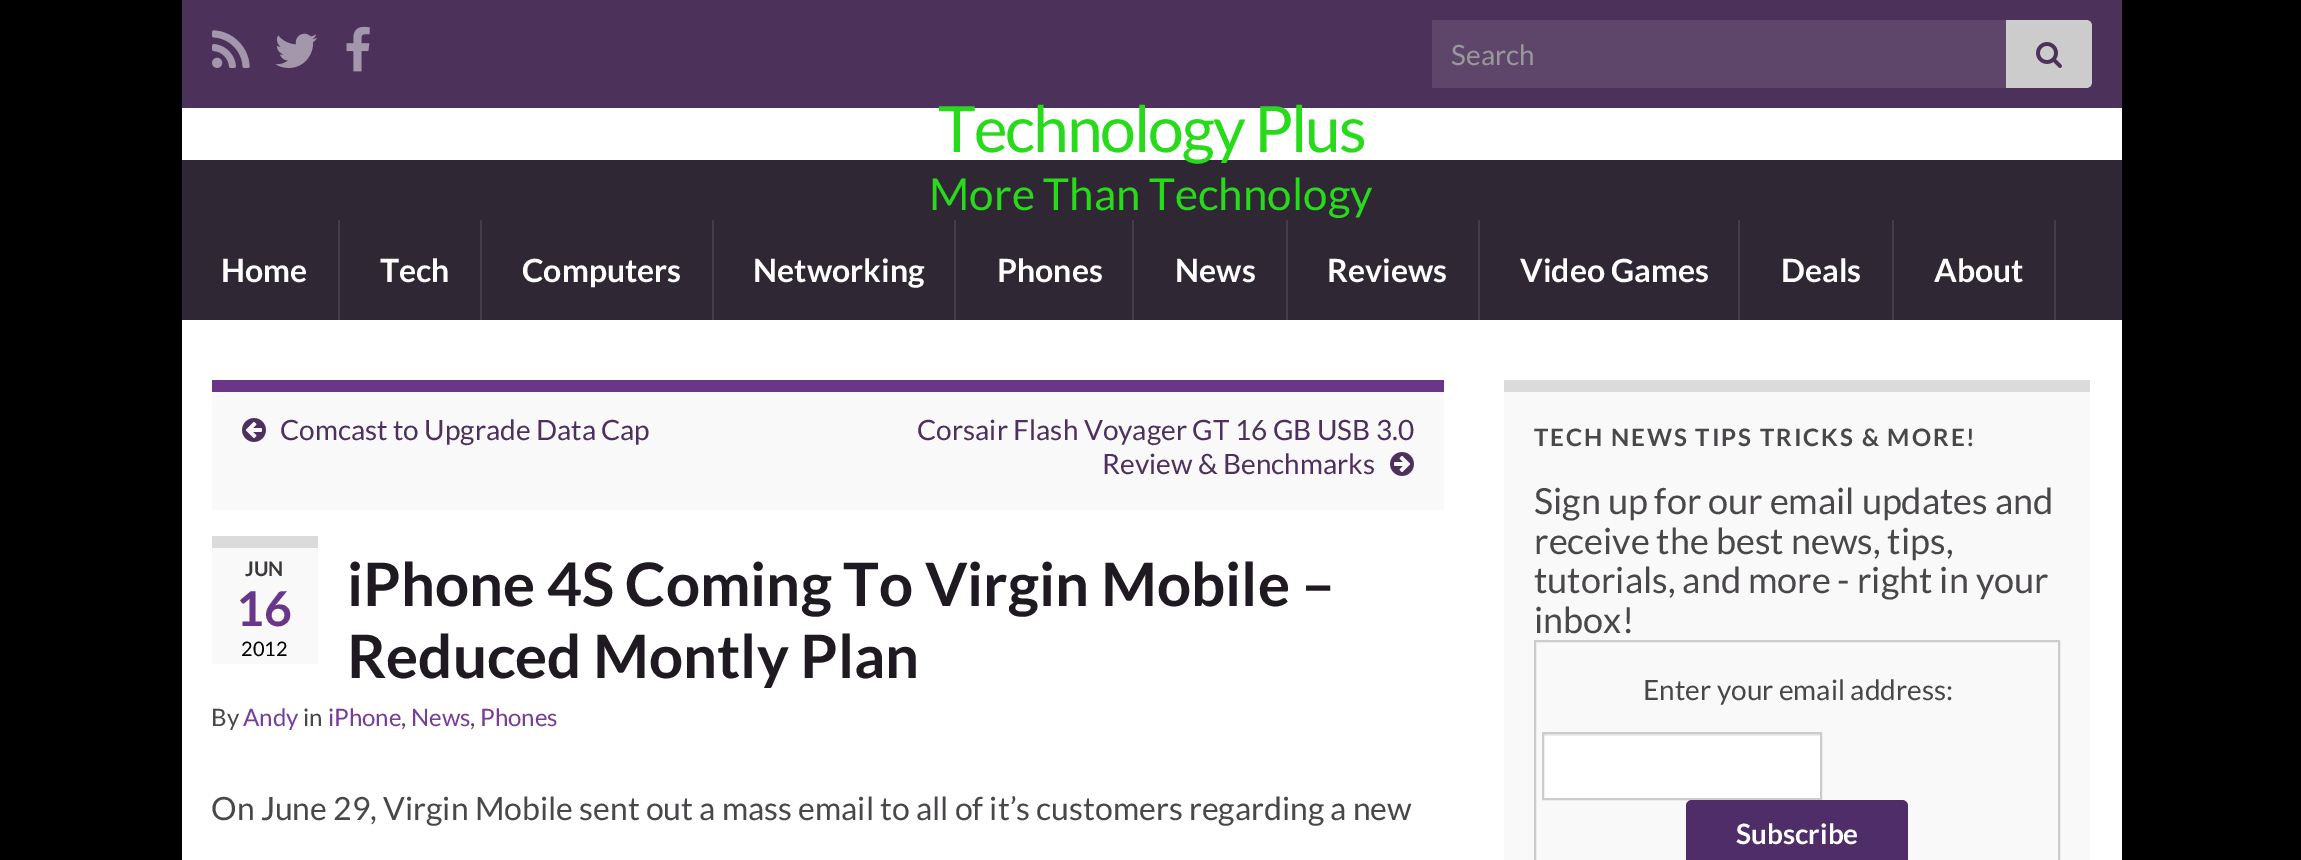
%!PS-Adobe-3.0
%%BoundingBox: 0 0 2301 860
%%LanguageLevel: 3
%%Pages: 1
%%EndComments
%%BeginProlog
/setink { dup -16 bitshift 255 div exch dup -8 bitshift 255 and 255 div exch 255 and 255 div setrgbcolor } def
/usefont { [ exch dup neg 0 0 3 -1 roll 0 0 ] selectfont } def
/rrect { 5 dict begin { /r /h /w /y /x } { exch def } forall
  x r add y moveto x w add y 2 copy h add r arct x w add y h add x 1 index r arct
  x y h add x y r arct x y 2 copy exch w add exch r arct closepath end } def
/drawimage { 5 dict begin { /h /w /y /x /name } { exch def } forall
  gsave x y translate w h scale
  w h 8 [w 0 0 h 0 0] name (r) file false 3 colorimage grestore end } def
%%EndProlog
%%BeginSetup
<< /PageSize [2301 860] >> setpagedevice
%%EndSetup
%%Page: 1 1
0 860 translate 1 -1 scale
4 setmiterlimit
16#000000 setink
0 0 2301 860 rectfill
16#4C315A setink
182 0 1940 108 rectfill
(img1.raw) 212 30 38 38 drawimage
(img2.raw) 275 33 42 35 drawimage
(img3.raw) 346 26 24 46 drawimage
16#5E466B setink
1432 20 574 68 rectfill
/Lato-Regular 28 usefont
16#999999 setink
1451 65 moveto (Search) show
16#CCCCCC setink
2006 20 moveto 2086 20 lineto 2089.5 20 2092 22.5 2092 26 curveto 2092 82 lineto 2092 85.5 2089.5 88 2086 88 curveto 2006 88 lineto closepath fill
(img4.raw) 2036 42 26 26 drawimage
16#2F2733 setink
182 160 1940 160 rectfill
16#FFFFFF setink
182 108 1940 52 rectfill
/Lato-Regular 64 usefont
16#27DB1A setink
938 152 moveto -2 0 (Technology Plus) ashow
/Lato-Regular 44 usefont
929 210 moveto (More Than Technology) show
16#443D47 setink
338 220 2 100 rectfill
/Lato-Bold 32 usefont
16#FFFFFF setink
221 282 moveto (Home) show
16#443D47 setink
480 220 2 100 rectfill
16#FFFFFF setink
380 282 moveto (Tech) show
16#443D47 setink
712 220 2 100 rectfill
16#FFFFFF setink
522 282 moveto (Computers) show
16#443D47 setink
954 220 2 100 rectfill
16#FFFFFF setink
753 282 moveto (Networking) show
16#443D47 setink
1132 220 2 100 rectfill
16#FFFFFF setink
997 282 moveto (Phones) show
16#443D47 setink
1286 220 2 100 rectfill
16#FFFFFF setink
1175 282 moveto (News) show
16#443D47 setink
1478 220 2 100 rectfill
16#FFFFFF setink
1327 282 moveto (Reviews) show
16#443D47 setink
1738 220 2 100 rectfill
16#FFFFFF setink
1520 282 moveto (Video Games) show
16#443D47 setink
1892 220 2 100 rectfill
16#FFFFFF setink
1781 282 moveto (Deals) show
16#443D47 setink
2054 220 2 100 rectfill
16#FFFFFF setink
1934 282 moveto (About) show
[
    [182 320 1940 540 16#FFFFFF]
    [212 392 1232 118 16#F9F9F9]
    [212 380 1232 12 16#6B3589]
] { aload pop setink rectfill } forall
(img5.raw) 242 418 24 24 drawimage
/Lato-Regular 28 usefont
16#4E305E setink
[
    [(Comcast to Upgrade Data Cap) 280 440]
    [(Corsair Flash Voyager GT 16 GB USB 3.0) 917 440]
    [(Review & Benchmarks) 1102 474]
] { aload pop moveto show } forall
(img6.raw) 1390 452 24 24 drawimage
16#F9F9F9 setink
212 548 106 116 rectfill
16#DBDBDB setink
212 536 106 12 rectfill
/Lato-Bold 20 usefont
16#3B383D setink
245 576 moveto (JUN) show
/Lato-Bold 48 usefont
16#6B3589 setink
236 626 moveto (16) show
/Lato-Regular 20 usefont
16#000000 setink
241 656 moveto (2012) show
/Lato-Bold 60 usefont
16#1F1A22 setink
347 606 moveto (iPhone 4S Coming To Virgin Mobile –) show
347 678 moveto (Reduced Montly Plan) show
/Lato-Regular 24 usefont
16#4A474B setink
211 726 moveto (By) show
16#783D98 setink
243 726 moveto (Andy) show
16#4A474B setink
303 726 moveto (in) show
16#783D98 setink
328 726 moveto (iPhone) show
16#4A474B setink
401 726 moveto (,) show
16#783D98 setink
411 726 moveto (News) show
16#4A474B setink
470 726 moveto (,) show
16#783D98 setink
480 726 moveto (Phones) show
/Lato-Regular 32 usefont
16#4A474B setink
211 820 moveto (On June 29, Virgin Mobile sent out a mass email to all of it’s customers regarding a new) show
16#F9F9F9 setink
1504 392 586 468 rectfill
16#DBDBDB setink
1504 380 586 12 rectfill
/Lato-Bold 24 usefont
16#4A474B setink
1534 446 moveto 2 0 (TECH NEWS TIPS TRICKS & MORE!) ashow
/Lato-Regular 36 usefont
[
    [(Sign up for our email updates and) 1534 514]
    [(receive the best news, tips,) 1534 554]
    [(tutorials, and more - right in your) 1534 593]
    [(inbox!) 1534 633]
] { aload pop moveto show } forall
16#CCCCCC setink
2 setlinewidth
1535 641 524 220 rectstroke
/Lato-Regular 28 usefont
16#4A474B setink
1643 700 moveto (Enter your email address:) show
16#FFFFFF setink
1544 736 276 62 rectfill
16#ECECEC setink
1544 734 276 2 rectfill
16#CCCCCC setink
1543 733 278 66 rectstroke
16#4F2D69 setink
1686 800 222 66 6 rrect fill
/Lato-Bold 28 usefont
16#FFFFFF setink
1736 844 moveto (Subscribe) show
showpage
%%EOF
